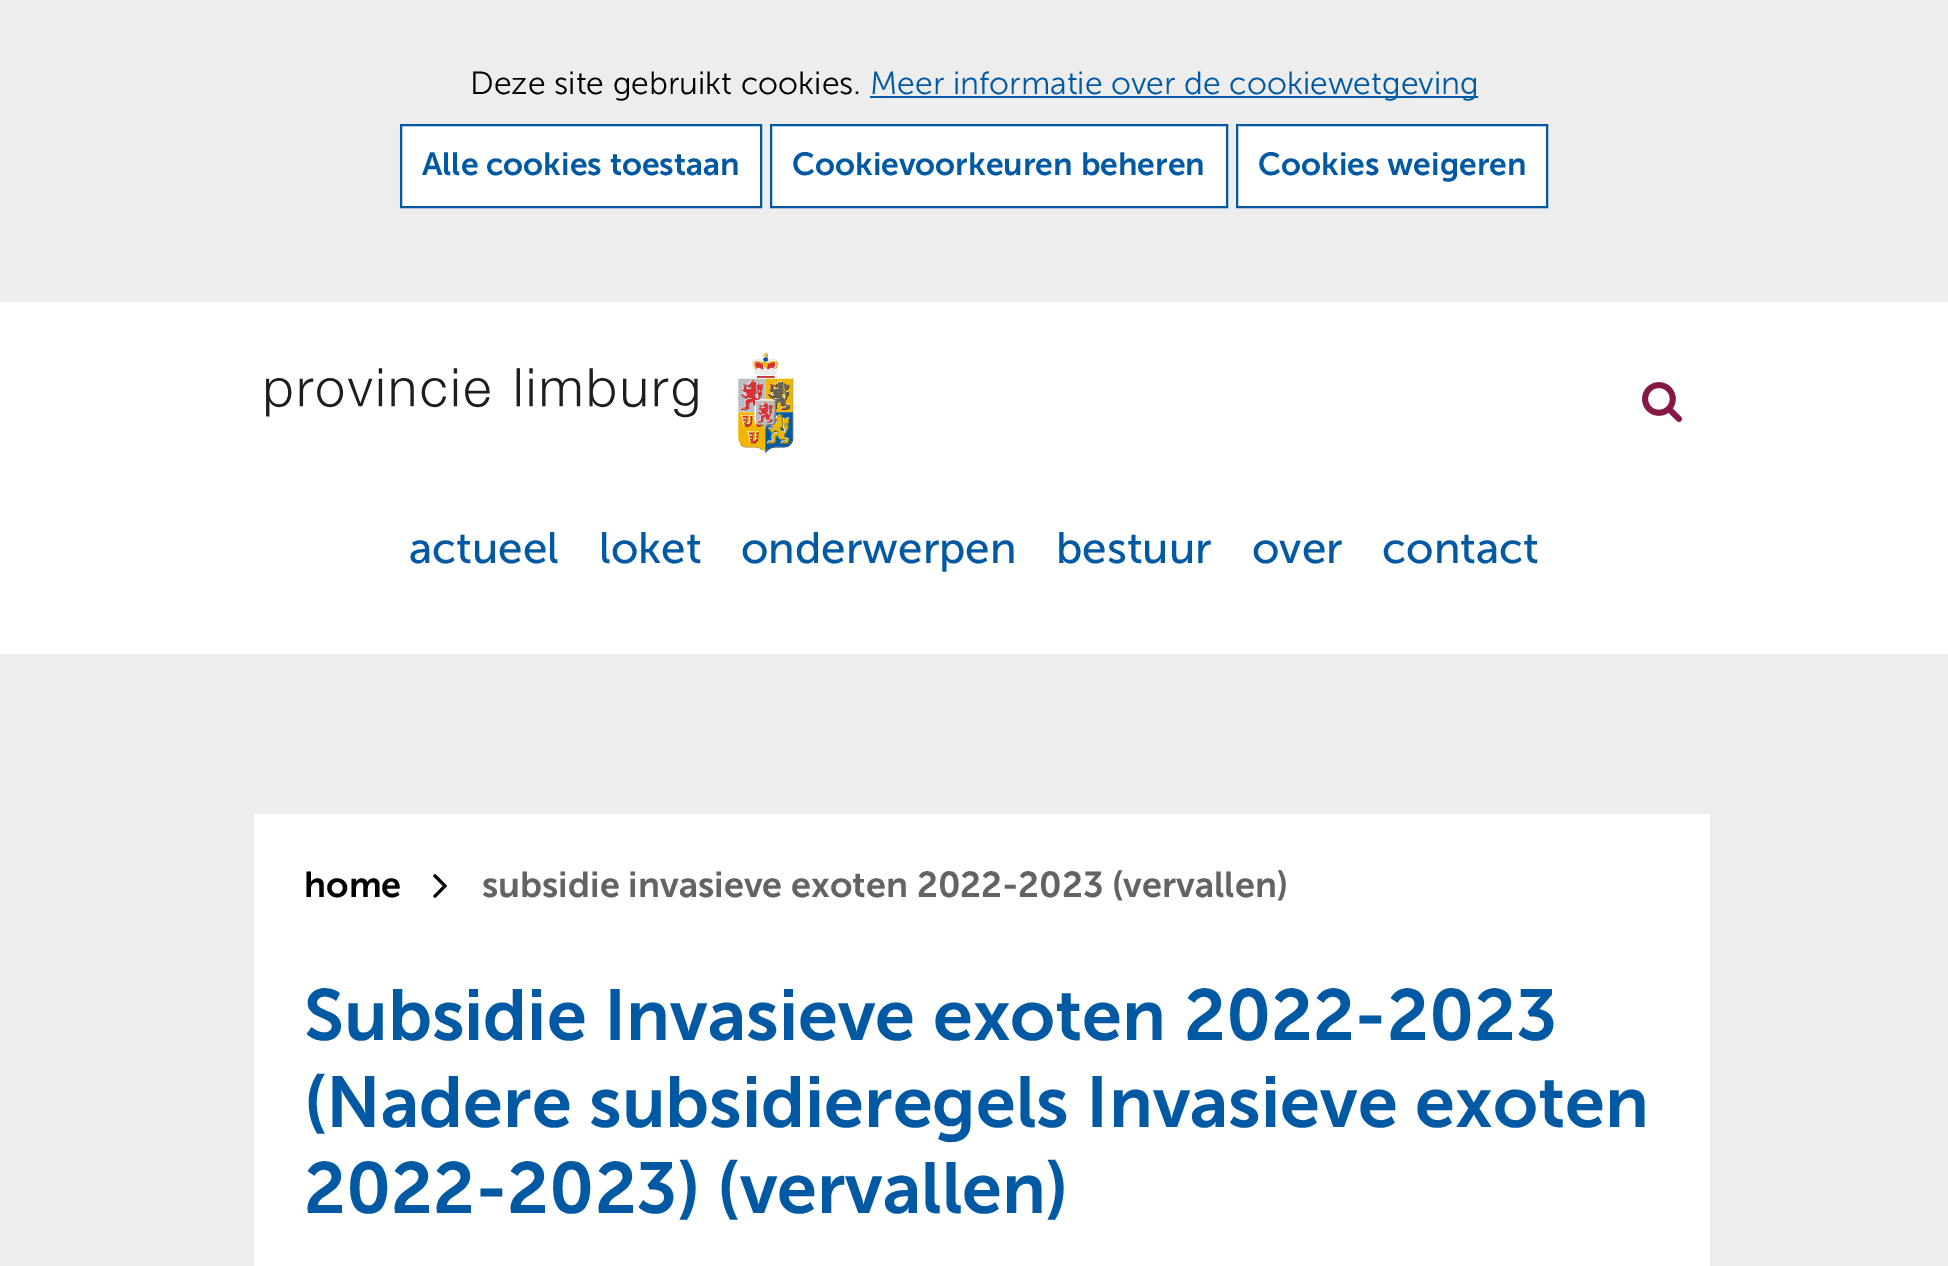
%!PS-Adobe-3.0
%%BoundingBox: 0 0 1948 1266
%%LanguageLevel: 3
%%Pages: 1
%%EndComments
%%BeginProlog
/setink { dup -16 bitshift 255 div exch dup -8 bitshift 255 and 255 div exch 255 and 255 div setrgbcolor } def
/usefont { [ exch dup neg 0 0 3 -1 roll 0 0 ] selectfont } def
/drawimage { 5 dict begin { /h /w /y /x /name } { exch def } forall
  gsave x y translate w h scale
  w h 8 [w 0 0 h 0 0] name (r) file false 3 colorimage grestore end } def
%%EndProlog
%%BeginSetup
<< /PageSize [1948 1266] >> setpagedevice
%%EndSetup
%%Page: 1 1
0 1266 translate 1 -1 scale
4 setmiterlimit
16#EDEDEE setink
0 0 1948 1266 rectfill
/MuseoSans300-Light 32 usefont
16#000000 setink
470 94 moveto (Deze site gebruikt cookies.) show
16#0059A2 setink
870 96 608 2 rectfill
870 94 moveto (Meer informatie over de cookiewetgeving) show
16#FFFFFF setink
401 125 moveto 761 125 lineto 761 207 lineto 401 207 lineto closepath gsave fill grestore
16#0058A2 setink
2 setlinewidth
stroke
/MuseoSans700-SemiBold 32 usefont
16#0059A2 setink
422 175 moveto (Alle cookies toestaan) show
16#FFFFFF setink
771 125 moveto 1227 125 lineto 1227 207 lineto 771 207 lineto closepath gsave fill grestore
16#0058A2 setink
stroke
16#0059A2 setink
792 175 moveto (Cookievoorkeuren beheren) show
16#FFFFFF setink
1237 125 moveto 1547 125 lineto 1547 207 lineto 1237 207 lineto closepath gsave fill grestore
16#0058A2 setink
stroke
16#0059A2 setink
1258 175 moveto (Cookies weigeren) show
16#FFFFFF setink
0 302 1948 352 rectfill
(img1.raw) 266 352 528 103 drawimage
(img2.raw) 1642 382 40 40 drawimage
/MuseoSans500-Regular 44 usefont
16#0059A2 setink
[
    [(actueel) 409 563]
    [(loket) 599 563]
    [(onderwerpen) 741 563]
    [(bestuur) 1056 563]
    [(over) 1252 563]
    [(contact) 1382 563]
] { aload pop moveto show } forall
16#FFFFFF setink
254 814 1456 452 rectfill
/MuseoSans700-SemiBold 36 usefont
16#000000 setink
304 897 moveto (home) show
(img3.raw) 433 874 14 24 drawimage
16#646362 setink
482 897 moveto (subsidie invasieve exoten 2022-2023 \(vervallen\)) show
/MuseoSans700-SemiBold 72 usefont
16#0059A2 setink
[
    [(Subsidie Invasieve exoten 2022-2023) 304 1040]
    [(\(Nadere subsidieregels Invasieve exoten) 304 1127]
    [(2022-2023\) \(vervallen\)) 304 1213]
] { aload pop moveto show } forall
showpage
%%EOF
